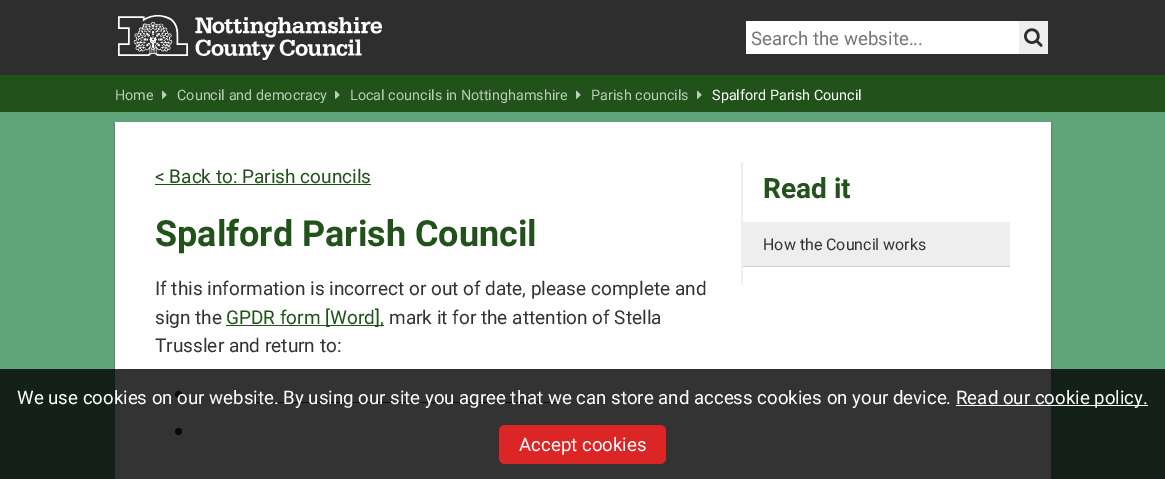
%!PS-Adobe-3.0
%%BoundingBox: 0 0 1165 479
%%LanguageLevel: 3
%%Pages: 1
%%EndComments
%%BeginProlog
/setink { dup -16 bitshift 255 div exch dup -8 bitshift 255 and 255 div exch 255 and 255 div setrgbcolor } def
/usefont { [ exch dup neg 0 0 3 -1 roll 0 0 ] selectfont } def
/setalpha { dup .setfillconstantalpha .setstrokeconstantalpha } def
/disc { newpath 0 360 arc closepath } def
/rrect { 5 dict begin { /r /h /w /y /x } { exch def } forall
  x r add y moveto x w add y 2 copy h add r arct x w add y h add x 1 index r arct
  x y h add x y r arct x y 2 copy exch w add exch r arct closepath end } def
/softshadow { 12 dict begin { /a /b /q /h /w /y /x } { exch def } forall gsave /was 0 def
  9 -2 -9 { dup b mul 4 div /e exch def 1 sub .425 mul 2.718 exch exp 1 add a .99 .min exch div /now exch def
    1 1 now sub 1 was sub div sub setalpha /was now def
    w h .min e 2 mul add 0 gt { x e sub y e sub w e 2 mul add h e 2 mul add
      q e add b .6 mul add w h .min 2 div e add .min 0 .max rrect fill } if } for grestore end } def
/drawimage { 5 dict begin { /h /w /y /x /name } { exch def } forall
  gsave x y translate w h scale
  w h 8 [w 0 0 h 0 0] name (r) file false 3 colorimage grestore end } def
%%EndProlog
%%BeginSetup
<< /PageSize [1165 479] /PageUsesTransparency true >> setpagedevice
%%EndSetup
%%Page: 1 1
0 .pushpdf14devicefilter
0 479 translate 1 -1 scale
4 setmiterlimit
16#2E2E2E setink
0 0 1165 479 rectfill
(img1.raw) 118 15 264 45 drawimage
16#FFFFFF setink
746 21 273 33 rectfill
/Roboto-Regular 18.67 usefont
16#757575 setink
751 45 moveto (Search the website...) show
16#EEEEEE setink
1019 21 29 33 rectfill
(img2.raw) 1024 28 19 19 drawimage
16#61A57A setink
0 112 1165 367 rectfill
16#20521A setink
0 75 1165 37 rectfill
/Roboto-Regular 14.4 usefont
16#BCCBBA setink
115 100 moveto (Home) show
(img3.raw) 162 90 5 9 drawimage
177 100 moveto (Council and democracy) show
(img3.raw) 335 90 5 9 drawimage
350 100 moveto (Local councils in Nottinghamshire) show
(img3.raw) 576 90 5 9 drawimage
591 100 moveto (Parish councils) show
(img3.raw) 697 90 5 9 drawimage
16#FFFFFF setink
712 100 moveto (Spalford Parish Council) show
16#000000 setink
115 123 936 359 0 1 0.24 softshadow
115 123 936 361 0 1.5 0.12 softshadow
16#FFFFFF setink
115 122 936 357 rectfill
/Roboto-Regular 19 usefont
16#20521A setink
155 183 moveto (< Back to: Parish councils) show
155 184 216 1 rectfill
/Roboto-Bold 36 usefont
155 246 moveto (Spalford Parish Council) show
/Roboto-Regular 19 usefont
16#333333 setink
155 295 moveto (If this information is incorrect or out of date, please complete and) show
155 324 moveto (sign the) show
16#20521A setink
226 325 158 1 rectfill
226 324 moveto (GPDR form [Word],) show
16#333333 setink
389 324 moveto (mark it for the attention of Stella) show
155 352 moveto (Trussler and return to:) show
178.5 394.5 3.5 disc fill
16#20521A setink
252 402 304 1 rectfill
16#333333 setink
178.5 431.5 3.5 disc fill
16#EEEEEE setink
741 162 2 123 rectfill
/Roboto-Bold 28 usefont
16#20521A setink
763 198 moveto (Read it) show
16#EEEEEE setink
743 222 267 44 rectfill
16#D0D0D0 setink
743 266 267 1 rectfill
/Roboto-Regular 16 usefont
16#333333 setink
763 250 moveto (How the Council works) show
0.8 setalpha
16#000000 setink
0 369 1165 110 rectfill
/Roboto-Regular 18.67 usefont
1 setalpha
16#FFFFFF setink
17 404 moveto (We use cookies on our website. By using our site you agree that we can store and access cookies on your device.) show
956 405 192 1 rectfill
956 404 moveto (Read our cookie policy.) show
16#DC2626 setink
499 425 167 39 6 rrect fill
16#FFFFFF setink
519 451 moveto (Accept cookies) show
.poppdf14devicefilter showpage
%%EOF
